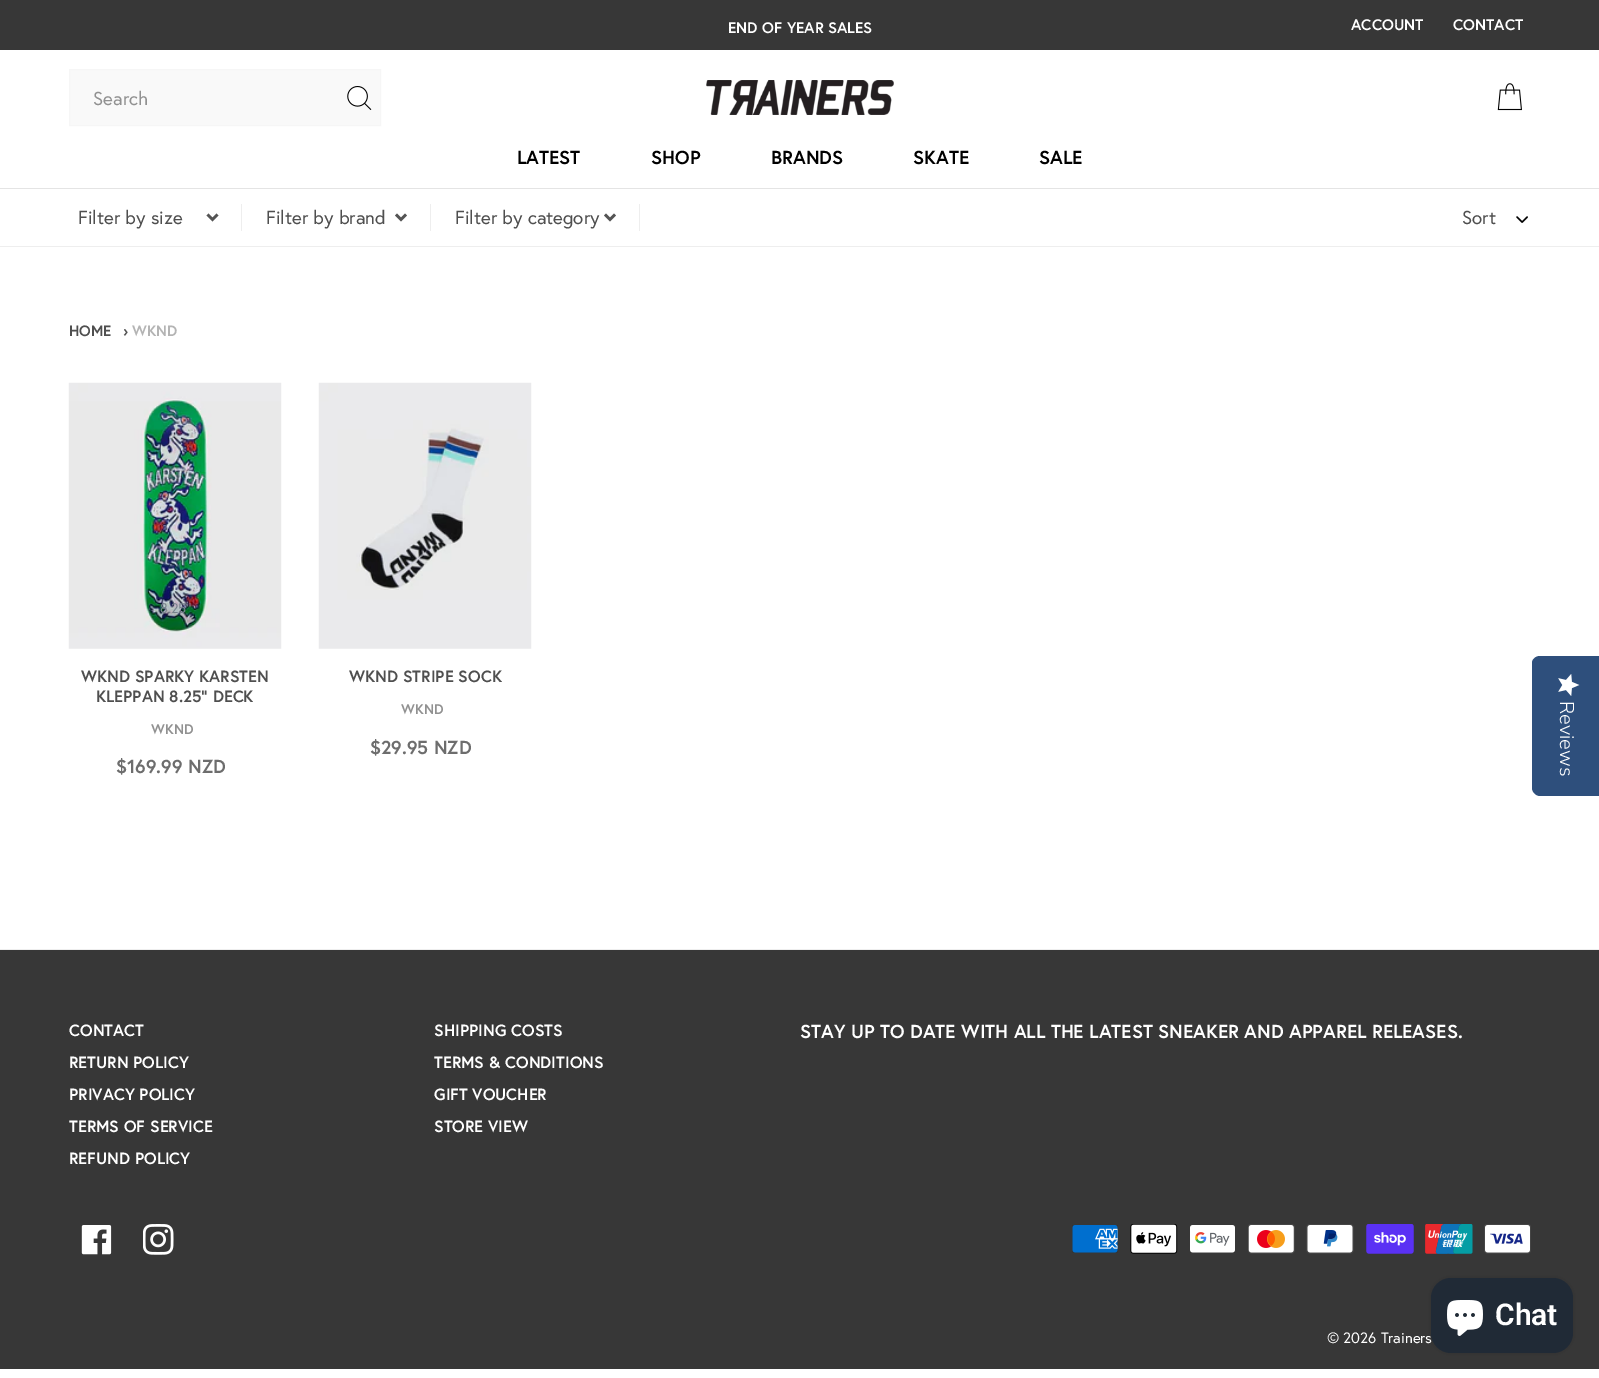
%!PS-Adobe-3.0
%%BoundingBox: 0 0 1599 1378
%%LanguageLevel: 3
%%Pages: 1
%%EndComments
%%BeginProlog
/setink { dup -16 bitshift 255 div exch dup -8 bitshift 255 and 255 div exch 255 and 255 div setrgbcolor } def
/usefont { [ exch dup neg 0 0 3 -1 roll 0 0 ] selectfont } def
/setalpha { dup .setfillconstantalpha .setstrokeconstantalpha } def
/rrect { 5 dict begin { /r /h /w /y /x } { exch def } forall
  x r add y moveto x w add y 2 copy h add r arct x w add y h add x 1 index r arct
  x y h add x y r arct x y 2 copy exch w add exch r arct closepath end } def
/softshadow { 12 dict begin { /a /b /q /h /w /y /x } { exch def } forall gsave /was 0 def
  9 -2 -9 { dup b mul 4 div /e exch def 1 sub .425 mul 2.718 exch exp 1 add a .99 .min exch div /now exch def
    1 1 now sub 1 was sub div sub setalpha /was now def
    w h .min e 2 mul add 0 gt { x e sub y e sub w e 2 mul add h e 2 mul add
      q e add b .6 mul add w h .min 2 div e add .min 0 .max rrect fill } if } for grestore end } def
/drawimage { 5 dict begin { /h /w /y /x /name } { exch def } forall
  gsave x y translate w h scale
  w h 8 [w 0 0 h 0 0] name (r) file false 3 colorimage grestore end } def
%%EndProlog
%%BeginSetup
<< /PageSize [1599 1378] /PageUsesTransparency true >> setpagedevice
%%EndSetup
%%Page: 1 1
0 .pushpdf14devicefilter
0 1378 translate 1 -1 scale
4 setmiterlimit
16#FFFFFF setink
0 0 1599 1378 rectfill
16#373737 setink
0 0 1599 50 rectfill
/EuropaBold-Bold 15.25 usefont
16#FFFFFF setink
[
    [(END OF YEAR SALES) 728 33]
    [(ACCOUNT) 1351 30]
    [(CONTACT) 1453 30]
] { aload pop moveto show } forall
16#F9F9F9 setink
69.5 69.5 moveto 380.5 69.5 lineto 380.5 125.5 lineto 69.5 125.5 lineto closepath gsave fill grestore
16#F6F6F6 setink
stroke
/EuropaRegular-Regular 18.75 usefont
16#919191 setink
93 105 moveto (Search) show
(img1.raw) 347 86 25 24 drawimage
(img2.raw) 706 80 188 35 drawimage
(img3.raw) 1497 83 25 28 drawimage
16#E4E4E4 setink
0 188 1599 1 rectfill
/EuropaBold-Bold 18.75 usefont
16#000000 setink
[
    [(LATEST) 517 164]
    [(SHOP) 651 164]
    [(BRANDS) 771 164]
    [(SKATE) 913 164]
    [(SALE) 1039 164]
] { aload pop moveto show } forall
16#EEEEEE setink
0 246 1599 1 rectfill
241 204 1 27 rectfill
16#545454 setink
2.5 setlinewidth
207.5 214.5 moveto 212.5 219.5 lineto 217.5 214.5 lineto stroke
/EuropaRegular-Regular 18.75 usefont
16#4F4F4F setink
78 224 moveto (Filter by size) show
16#EEEEEE setink
430 204 1 27 rectfill
16#545454 setink
396 214.5 moveto 401 219.5 lineto 406 214.5 lineto stroke
16#4F4F4F setink
266 224 moveto (Filter by brand) show
16#EEEEEE setink
639 204 1 27 rectfill
16#545454 setink
605 214.5 moveto 610 219.5 lineto 615 214.5 lineto stroke
16#4F4F4F setink
455 224 moveto (Filter by category) show
1462 224 moveto (Sort) show
(img4.raw) 1516 216 12 7 drawimage
/EuropaBold-Bold 15 usefont
69 336 moveto (HOME) show
123 336 moveto (›) show
16#B4B4B4 setink
132 336 moveto (WKND) show
(img5.raw) 68 382 214 267 drawimage
/EuropaRegular-Regular 14 usefont
16#77828C setink
160 613 moveto (8.25’’) show
/EuropaBold-Bold 16.25 usefont
16#4F4F4F setink
81 682 moveto (WKND SPARKY KARSTEN) show
96 702 moveto (KLEPPAN 8.25” DECK) show
/EuropaBold-Bold 14 usefont
16#919191 setink
151 734 moveto (WKND) show
/EuropaBold-Bold 18.75 usefont
16#6D6D6D setink
116 773 moveto ($169.99 NZD) show
(img6.raw) 318 382 214 267 drawimage
/EuropaBold-Bold 16.25 usefont
16#4F4F4F setink
349 682 moveto (WKND STRIPE SOCK) show
/EuropaBold-Bold 14 usefont
16#919191 setink
401 714 moveto (WKND) show
/EuropaBold-Bold 18.75 usefont
16#6D6D6D setink
370 754 moveto ($29.95 NZD) show
16#373737 setink
0 950 1599 419 rectfill
16#EEEEEE setink
0 949 1599 1 rectfill
/EuropaBold-Bold 16.25 usefont
16#FFFFFF setink
[
    [(CONTACT) 69 1036]
    [(RETURN POLICY) 69 1068]
    [(PRIVACY POLICY) 69 1100]
    [(TERMS OF SERVICE) 69 1132]
    [(REFUND POLICY) 69 1164]
    [(SHIPPING COSTS) 434 1036]
    [(TERMS & CONDITIONS) 434 1068]
    [(GIFT VOUCHER) 434 1100]
    [(STORE VIEW) 434 1132]
] { aload pop moveto show } forall
/EuropaBold-Bold 18.75 usefont
800 1038 moveto (STAY UP TO DATE WITH ALL THE LATEST SNEAKER AND APPAREL RELEASES.) show
(img7.raw) 81 1225 31 30 drawimage
(img8.raw) 143 1224 31 31 drawimage
(img9.raw) 1072 1225 46 28 drawimage
(img10.raw) 1130 1224 48 30 drawimage
(img11.raw) 1190 1225 45 28 drawimage
(img12.raw) 1248 1224 47 30 drawimage
(img13.raw) 1306 1224 48 30 drawimage
(img14.raw) 1366 1224 48 30 drawimage
(img15.raw) 1425 1224 48 30 drawimage
(img16.raw) 1484 1224 47 30 drawimage
/EuropaRegular-Regular 15 usefont
1327 1343 moveto (© 2026 Trainers) show
16#2E4F7C setink
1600 656 moveto 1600 796 lineto 1540 796 lineto 1536 796 1532 792 1532 788 curveto 1532 663 lineto 1532 659 1536 656 1540 656 curveto closepath fill
(img17.raw) 1558 674 22 22 drawimage
/NunitoSans-Light 20 usefont
16#FFFFFF setink
gsave 1560 701 translate 90 rotate 0 0 moveto (Reviews) show grestore
16#000000 setink
1431 1278 142 75 20 3 0.15 softshadow
16#202A36 setink
1431 1278 142 75 20 rrect fill
(img18.raw) 1447 1300 36 36 drawimage
/Roboto-SemiBold 30 usefont
16#FFFFFF setink
1495 1325 moveto (Chat) show
.poppdf14devicefilter showpage
%%EOF
